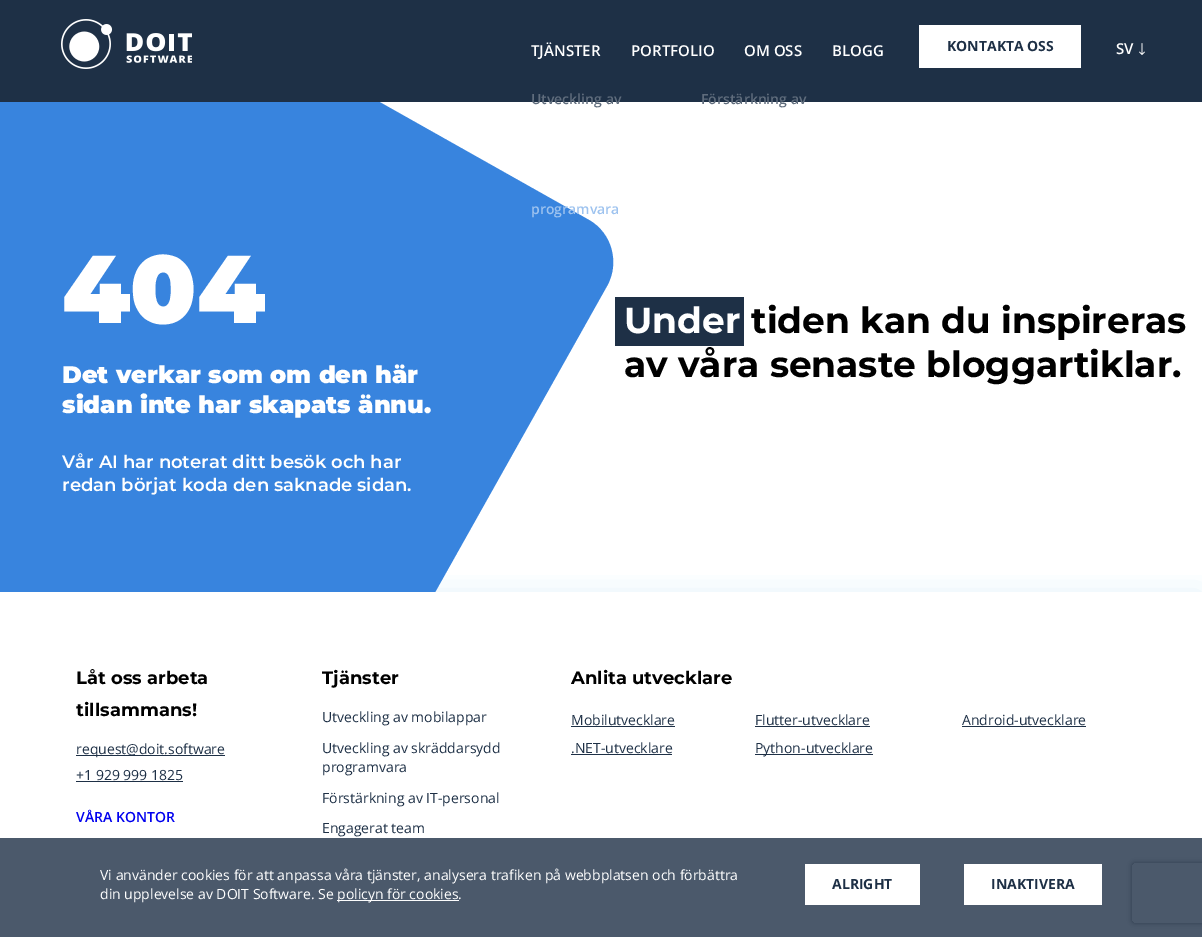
%!PS-Adobe-3.0
%%BoundingBox: 0 0 1202 937
%%LanguageLevel: 3
%%Pages: 1
%%EndComments
%%BeginProlog
/setink { dup -16 bitshift 255 div exch dup -8 bitshift 255 and 255 div exch 255 and 255 div setrgbcolor } def
/usefont { [ exch dup neg 0 0 3 -1 roll 0 0 ] selectfont } def
/setalpha { dup .setfillconstantalpha .setstrokeconstantalpha } def
/rrect { 5 dict begin { /r /h /w /y /x } { exch def } forall
  x r add y moveto x w add y 2 copy h add r arct x w add y h add x 1 index r arct
  x y h add x y r arct x y 2 copy exch w add exch r arct closepath end } def
/softshadow { 12 dict begin { /a /b /q /h /w /y /x } { exch def } forall gsave /was 0 def
  9 -2 -9 { dup b mul 4 div /e exch def 1 sub .425 mul 2.718 exch exp 1 add a .99 .min exch div /now exch def
    1 1 now sub 1 was sub div sub setalpha /was now def
    w h .min e 2 mul add 0 gt { x e sub y e sub w e 2 mul add h e 2 mul add
      q e add b .6 mul add w h .min 2 div e add .min 0 .max rrect fill } if } for grestore end } def
/drawimage { 5 dict begin { /h /w /y /x /name } { exch def } forall
  gsave x y translate w h scale
  w h 8 [w 0 0 h 0 0] name (r) file false 3 colorimage grestore end } def
%%EndProlog
%%BeginSetup
<< /PageSize [1202 937] /PageUsesTransparency true >> setpagedevice
%%EndSetup
%%Page: 1 1
0 .pushpdf14devicefilter
0 937 translate 1 -1 scale
4 setmiterlimit
16#FFFFFF setink
0 0 1202 937 rectfill
16#4B596B setink
0 838 1202 99 rectfill
gsave
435 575 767 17 rectclip
16#3884DE setink
0 592 1202 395 0 16.5 0.13 softshadow
grestore
gsave
0 98 1202 494 rectclip
16#3884DE setink
589 220 moveto -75 -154 lineto -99 -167 -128 -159 -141 -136 curveto -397 320 lineto -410 343 -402 373 -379 386 curveto 285 760 lineto 309 773 338 765 351 742 curveto 607 286 lineto 620 263 612 233 589 220 curveto closepath fill
grestore
16#1E3046 setink
0 0 1202 102 rectfill
(img1.raw) 61 19 131 50 drawimage
/OpenSans-SemiBold 15 usefont
16#FFFFFF setink
531 56 moveto (TJÄNSTER) show
/OpenSans-SemiBold 14 usefont
16#5F6C7C setink
531 104 moveto (Utveckling av) show
701 104 moveto (Förstärkning av) show
16#9EC3EF setink
531 214 moveto (programvara) show
/OpenSans-SemiBold 15 usefont
16#FFFFFF setink
[
    [(PORTFOLIO) 631 56]
    [(OM OSS) 744 56]
    [(BLOGG) 832 56]
] { aload pop moveto show } forall
919 25 162 43 rectfill
/OpenSans-Bold 14 usefont
16#1E3046 setink
947 51 moveto (KONTAKTA OSS) show
/OpenSans-SemiBold 15 usefont
16#FFFFFF setink
1116 54 moveto (SV) show
(img2.raw) 1139 43 6 12 drawimage
/Montserrat-Black 96 usefont
62 323 moveto (404) show
/Montserrat-Black 24 usefont
62 383 moveto (Det verkar som om den här) show
62 413 moveto (sidan inte har skapats ännu.) show
/Montserrat-SemiBold 18 usefont
62 468 moveto (Vår AI har noterat ditt besök och har) show
62 491 moveto (redan börjat koda den saknade sidan.) show
16#1E3046 setink
615 297 129 49 rectfill
/Montserrat-Bold 36 usefont
16#FFFFFF setink
624 333 moveto (Under) show
16#000000 setink
751 333 moveto (tiden kan du inspireras) show
624 377 moveto (av våra senaste bloggartiklar.) show
/Montserrat-Bold 18 usefont
76 684 moveto (Låt oss arbeta) show
76 716 moveto (tillsammans!) show
16#1E3046 setink
76 755 149 1 rectfill
/OpenSans-Regular 14 usefont
76 754 moveto (request@doit.software) show
76 780 moveto (+1 929 999 1825) show
76 781 107 1 rectfill
/OpenSans-SemiBold 14 usefont
16#0000EE setink
76 822 moveto (VÅRA KONTOR) show
/Montserrat-Bold 18 usefont
16#000000 setink
322 684 moveto (Tjänster) show
/OpenSans-Regular 14 usefont
16#1E3046 setink
[
    [(Utveckling av mobilappar) 322 722]
    [(Utveckling av skräddarsydd) 322 753]
    [(programvara) 322 772]
    [(Förstärkning av IT-personal) 322 803]
    [(Engagerat team) 322 833]
] { aload pop moveto show } forall
/Montserrat-Bold 18 usefont
16#000000 setink
571 684 moveto (Anlita utvecklare) show
/OpenSans-Regular 14 usefont
16#1E3046 setink
571 725 moveto (Mobilutvecklare) show
571 726 104 1 rectfill
755 725 moveto (Flutter-utvecklare) show
755 726 115 1 rectfill
962 725 moveto (Android-utvecklare) show
962 726 124 1 rectfill
571 753 moveto (.NET-utvecklare) show
571 754 101 1 rectfill
755 754 118 1 rectfill
755 753 moveto (Python-utvecklare) show
16#FFFFFF setink
100 880 moveto (Vi använder cookies för att anpassa våra tjänster, analysera trafiken på webbplatsen och förbättra) show
100 899 moveto (din upplevelse av DOIT Software. Se) show
16#FCFCFD setink
337 900 122 1 rectfill
16#FFFFFF setink
337 899 moveto (policyn för cookies.) show
805 864 115 41 rectfill
/OpenSans-Bold 14 usefont
16#1E3046 setink
832 889 moveto (ALRIGHT) show
16#FFFFFF setink
964 864 138 41 rectfill
16#1E3046 setink
991 889 moveto (INAKTIVERA) show
gsave
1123 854 moveto 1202 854 lineto 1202 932 lineto 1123 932 lineto closepath 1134 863 moveto 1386 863 lineto 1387 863 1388 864 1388 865 curveto 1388 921 lineto 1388 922 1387 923 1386 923 curveto 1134 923 lineto 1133 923 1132 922 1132 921 curveto 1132 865 lineto 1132 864 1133 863 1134 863 curveto closepath eoclip newpath
16#324052 setink
1132 863 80 60 2 2.5 1 softshadow
grestore
.poppdf14devicefilter showpage
%%EOF
